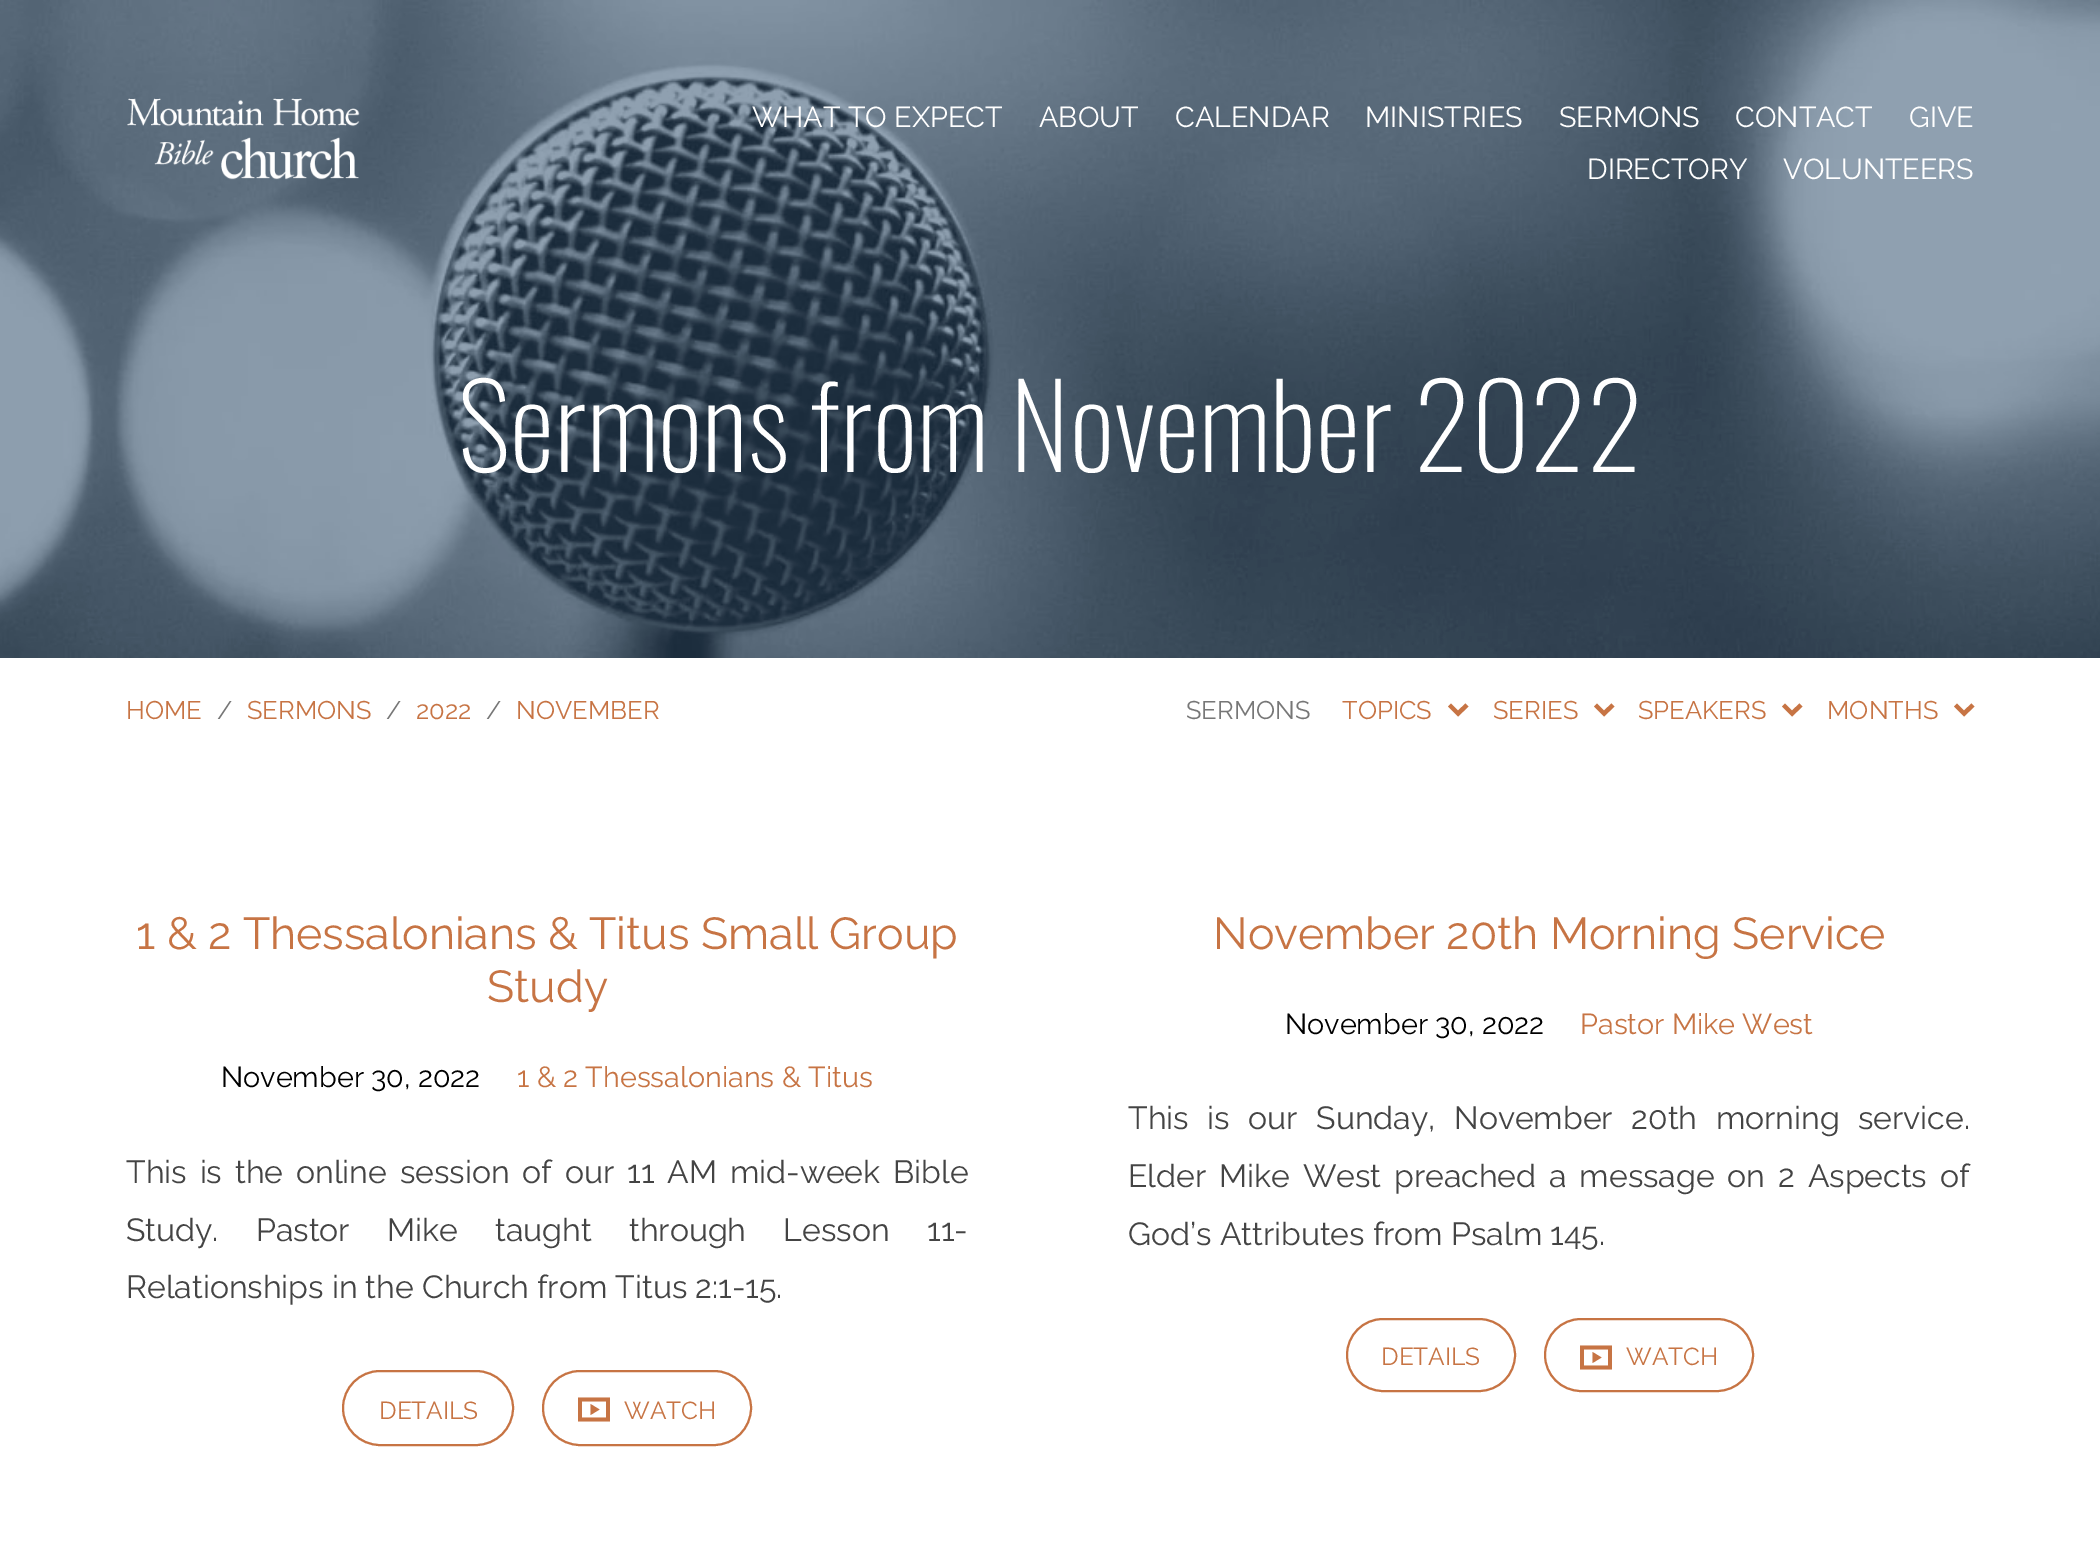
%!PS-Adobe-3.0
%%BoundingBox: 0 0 2100 1543
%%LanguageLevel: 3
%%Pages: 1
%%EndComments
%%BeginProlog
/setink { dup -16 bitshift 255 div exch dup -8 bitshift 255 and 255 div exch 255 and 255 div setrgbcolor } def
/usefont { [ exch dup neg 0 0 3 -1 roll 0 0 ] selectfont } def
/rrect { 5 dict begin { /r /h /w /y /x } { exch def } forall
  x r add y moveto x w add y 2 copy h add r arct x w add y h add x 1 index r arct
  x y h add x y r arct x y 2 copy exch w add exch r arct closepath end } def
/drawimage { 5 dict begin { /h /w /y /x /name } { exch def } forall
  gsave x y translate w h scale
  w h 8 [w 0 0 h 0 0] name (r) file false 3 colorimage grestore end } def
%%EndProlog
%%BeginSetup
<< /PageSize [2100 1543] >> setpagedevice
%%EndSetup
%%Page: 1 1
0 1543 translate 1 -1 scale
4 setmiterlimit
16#FFFFFF setink
0 0 2100 1543 rectfill
16#214363 setink
0 0 2100 658 rectfill
(img2.raw) 0 0 2100 658 drawimage
(img1.raw) 127 98 233 82 drawimage
/Raleway-Regular 28.75 usefont
16#FFFFFF setink
[
    [(WHAT TO EXPECT) 752 127]
    [(ABOUT) 1039 127]
    [(CALENDAR) 1175 127]
    [(MINISTRIES) 1365 127]
    [(SERMONS) 1559 127]
    [(CONTACT) 1735 127]
    [(GIVE) 1909 127]
    [(DIRECTORY) 1587 179]
    [(VOLUNTEERS) 1783 179]
] { aload pop moveto show } forall
/Oswald-ExtraLight 115.25 usefont
458 472 moveto (Sermons from November 2022) show
/Raleway-Regular 25.5 usefont
16#C77444 setink
126 719 moveto (HOME) show
16#777777 setink
217 719 moveto (/) show
16#C77444 setink
247 719 moveto (SERMONS) show
16#777777 setink
386 719 moveto (/) show
16#C77444 setink
416 719 moveto (2022) show
16#777777 setink
486 719 moveto (/) show
16#C77444 setink
516 719 moveto (NOVEMBER) show
16#777777 setink
1186 719 moveto (SERMONS) show
16#C77444 setink
1342 719 moveto (TOPICS) show
1458 716.5 moveto 1448 706.5 lineto 1451 703.5 lineto 1458 710.5 lineto 1465.5 703.5 lineto 1468.5 706.5 lineto closepath fill
1493 719 moveto (SERIES) show
1604 716.5 moveto 1594 706.5 lineto 1597 703.5 lineto 1604 710.5 lineto 1611.5 703.5 lineto 1614.5 706.5 lineto closepath fill
1638 719 moveto (SPEAKERS) show
1792 716.5 moveto 1782 706.5 lineto 1785 703.5 lineto 1792 710.5 lineto 1799.5 703.5 lineto 1802.5 706.5 lineto closepath fill
1827 719 moveto (MONTHS) show
1964 716.5 moveto 1954 706.5 lineto 1957 703.5 lineto 1964 710.5 lineto 1971.5 703.5 lineto 1974.5 706.5 lineto closepath fill
/Raleway-Regular 44.75 usefont
136 949 moveto (1 & 2 Thessalonians & Titus Small Group) show
487 1002 moveto (Study) show
/Raleway-Regular 28.75 usefont
16#000000 setink
221 1087 moveto (November 30, 2022) show
16#C77444 setink
517 1087 moveto (1 & 2 Thessalonians & Titus) show
/Raleway-Regular 32 usefont
16#444444 setink
126 1183 moveto 4.75 0 32 (This is the online session of our 11 AM mid-week Bible) widthshow
126 1241 moveto 29.25 0 32 (Study. Pastor Mike taught through Lesson 11-) widthshow
126 1298 moveto (Relationships in the Church from Titus 2:1-15.) show
16#C77444 setink
2 setlinewidth
343 1371 170 74 37 rrect stroke
/Raleway-Regular 24.5 usefont
379 1419 moveto (DETAILS) show
543 1371 208 74 37 rrect stroke
578 1397.5 moveto 610 1397.5 lineto 610 1421.5 lineto 578 1421.5 lineto closepath 582 1401.5 moveto 582 1417.5 lineto 606 1417.5 lineto 606 1401.5 lineto closepath 590.5 1404 moveto 599.5 1409.5 lineto 590.5 1415 lineto closepath fill
624 1419 moveto (WATCH) show
/Raleway-Regular 44.75 usefont
1213 949 moveto (November 20th Morning Service) show
/Raleway-Regular 28.75 usefont
16#000000 setink
1285 1034 moveto (November 30, 2022) show
16#C77444 setink
1580 1034 moveto (Pastor Mike West) show
/Raleway-Regular 32 usefont
16#444444 setink
1128 1129 moveto 10.5 0 32 (This is our Sunday, November 20th morning service.) widthshow
1128 1187 moveto 4.75 0 32 (Elder Mike West preached a message on 2 Aspects of) widthshow
1128 1245 moveto (God’s Attributes from Psalm 145.) show
16#C77444 setink
1347 1319 168 72 36 rrect stroke
/Raleway-Regular 24.5 usefont
1381 1365 moveto (DETAILS) show
1545 1319 208 72 36 rrect stroke
1580 1345.5 moveto 1612 1345.5 lineto 1612 1369.5 lineto 1580 1369.5 lineto closepath 1584 1349.5 moveto 1584 1365.5 lineto 1608 1365.5 lineto 1608 1349.5 lineto closepath 1592.5 1352 moveto 1601.5 1357.5 lineto 1592.5 1363 lineto closepath fill
1626 1365 moveto (WATCH) show
showpage
%%EOF
